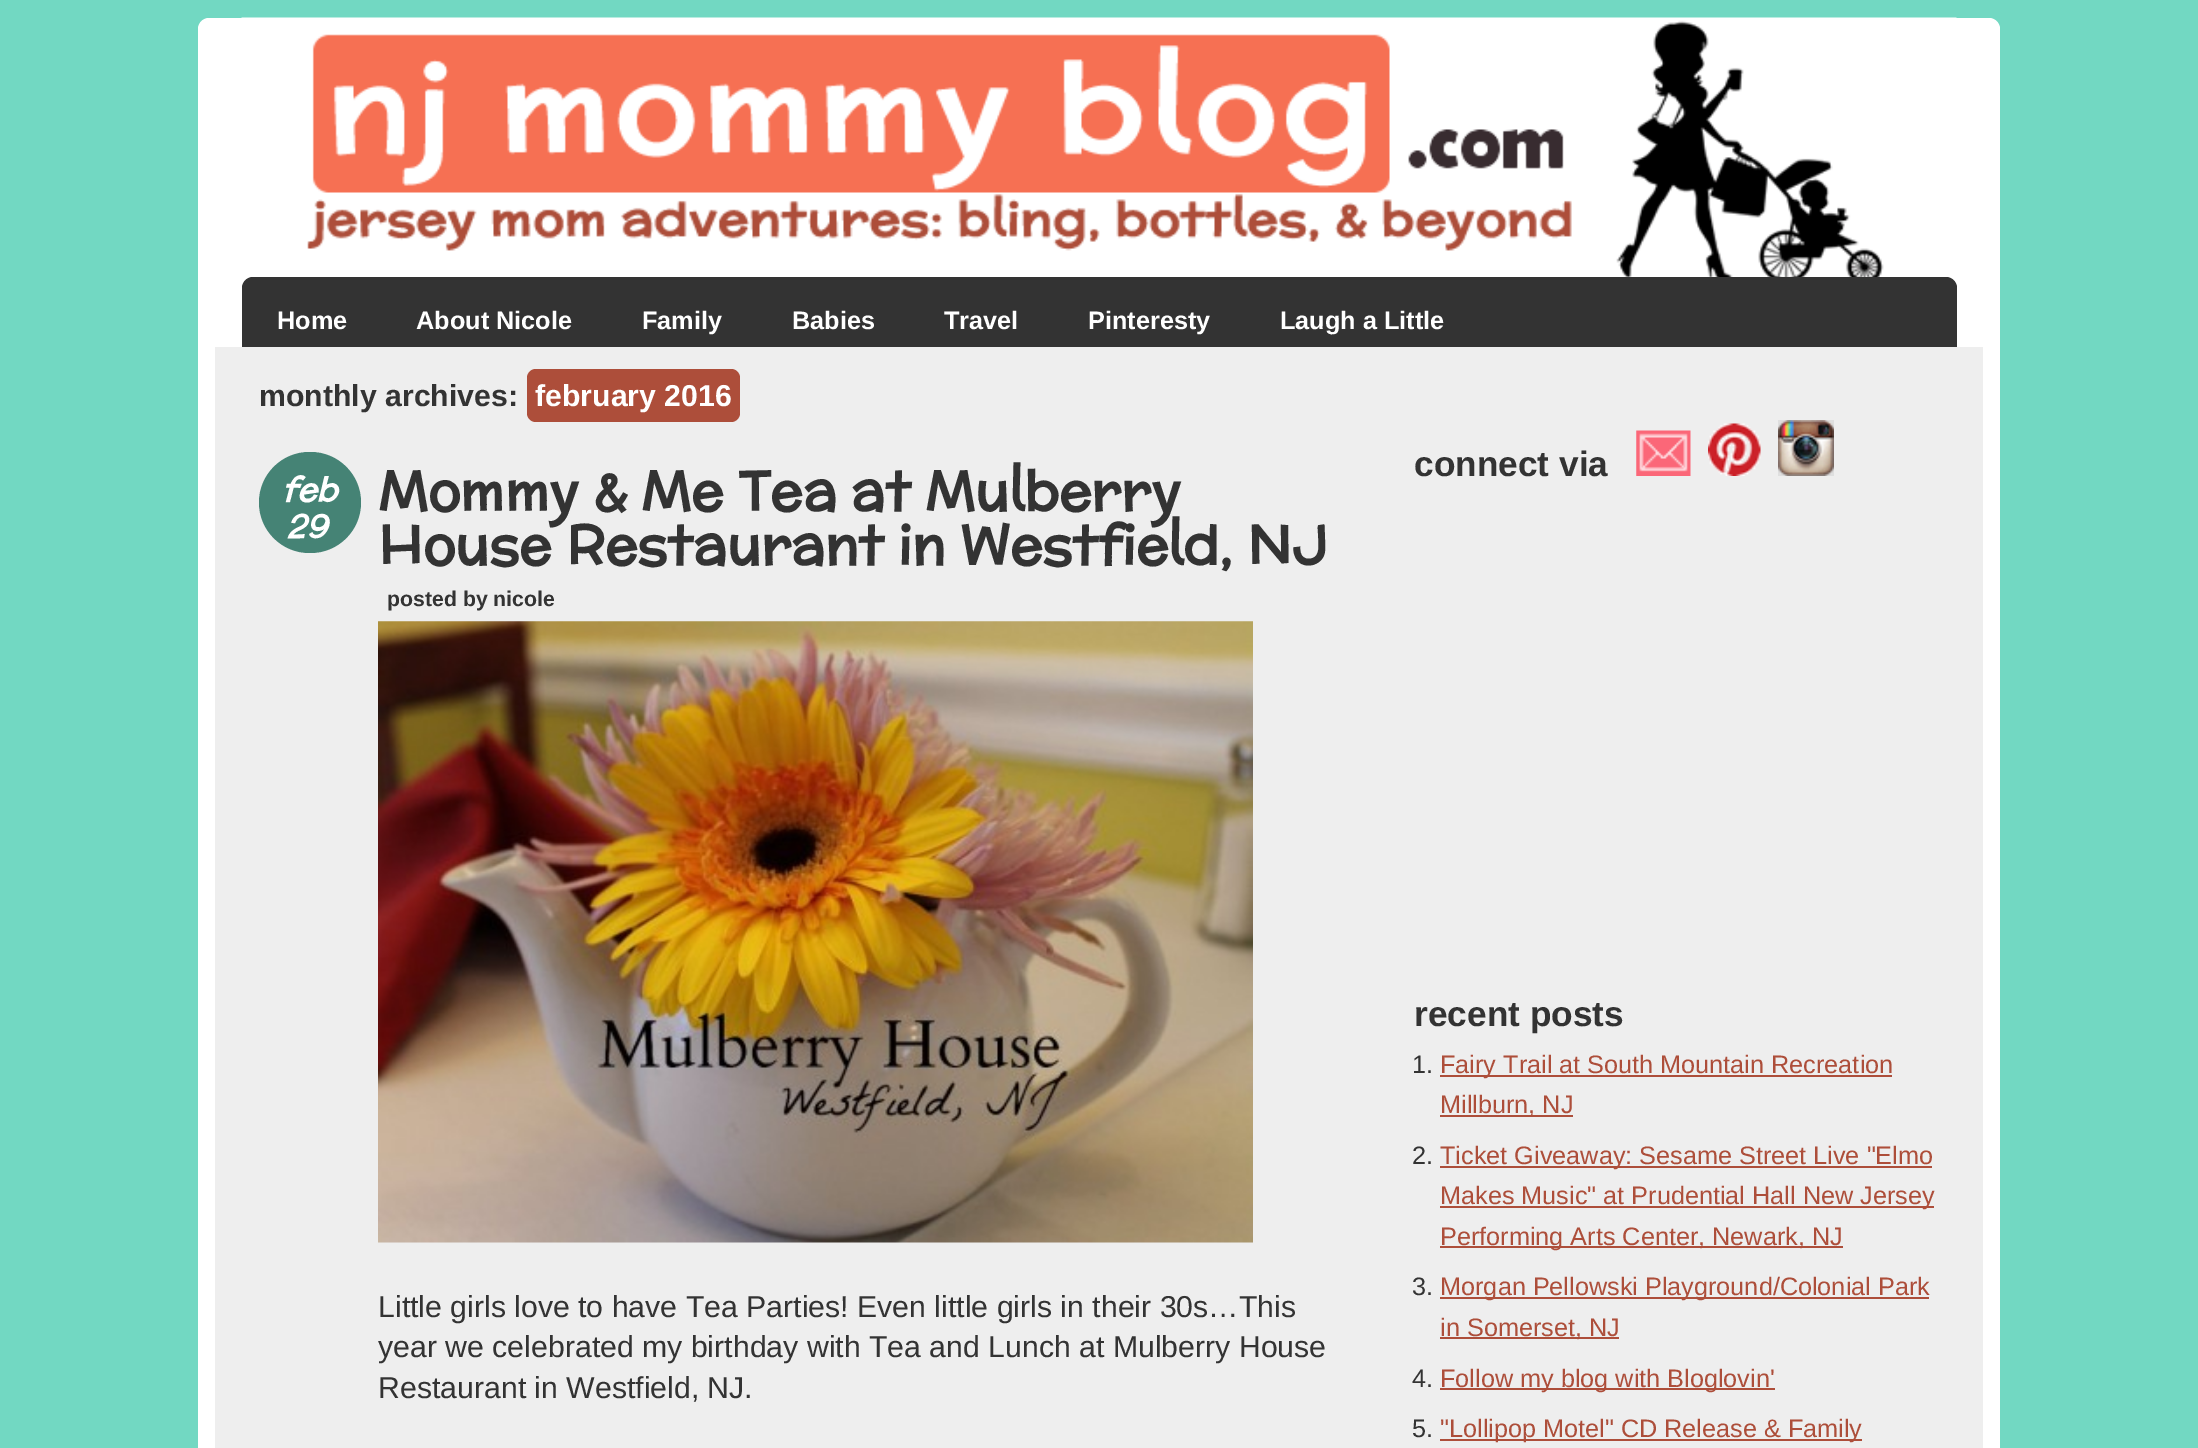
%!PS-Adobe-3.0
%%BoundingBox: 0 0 2198 1448
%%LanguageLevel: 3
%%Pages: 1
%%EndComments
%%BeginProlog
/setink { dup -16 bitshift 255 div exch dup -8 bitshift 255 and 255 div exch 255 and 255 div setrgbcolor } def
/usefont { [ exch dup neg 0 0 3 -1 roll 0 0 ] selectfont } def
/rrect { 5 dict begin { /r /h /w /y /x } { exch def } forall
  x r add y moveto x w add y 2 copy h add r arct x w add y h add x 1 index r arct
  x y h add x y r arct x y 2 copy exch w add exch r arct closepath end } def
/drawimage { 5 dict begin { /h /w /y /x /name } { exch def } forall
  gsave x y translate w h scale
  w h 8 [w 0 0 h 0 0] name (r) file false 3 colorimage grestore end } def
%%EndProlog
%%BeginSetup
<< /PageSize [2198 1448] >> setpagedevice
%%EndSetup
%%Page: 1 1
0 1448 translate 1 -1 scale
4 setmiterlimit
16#72D8C2 setink
0 0 2198 1448 rectfill
16#FFFFFF setink
209 18 moveto 1989 18 lineto 1995 18 2000 23 2000 29 curveto 2000 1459 lineto 198 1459 lineto 198 29 lineto 198 23 203 18 209 18 curveto closepath fill
(img1.raw) 241 17 1716 262 drawimage
16#333333 setink
253 277 moveto 1946 277 lineto 1952 277 1957 282 1957 288 curveto 1957 347 lineto 242 347 lineto 242 288 lineto 242 282 247 277 253 277 curveto closepath fill
/LiberationSans-Bold 25.25 usefont
16#FFFFFF setink
[
    [(Home) 277 329]
    [(About Nicole) 416 329]
    [(Family) 642 329]
    [(Babies) 792 329]
    [(Travel) 944 329]
    [(Pinteresty) 1088 329]
    [(Laugh a Little) 1280 329]
] { aload pop moveto show } forall
16#EEEEEE setink
215 347 1768 1101 rectfill
/LiberationSans-Bold 30.25 usefont
16#333333 setink
259 406 moveto (monthly archives:) show
16#AD4E3A setink
527 369 213 53 9 rrect fill
16#FFFFFF setink
535 406 moveto (february 2016) show
16#458375 setink
259 452 102 101 50.5 rrect fill
/McLaren-BoldItalic 33 usefont
16#FFFFFF setink
282 501 moveto (feb) show
286 538 moveto (29) show
/McLaren-Bold 54.4 usefont
16#333333 setink
378 510 moveto (Mommy & Me Tea at Mulberry) show
378 564 moveto (House Restaurant in Westfield, NJ) show
/LiberationSans-Bold 21.25 usefont
387 606 moveto (posted by nicole) show
(img2.raw) 378 621 875 622 drawimage
/LiberationSans-Regular 30.25 usefont
[
    [(Little girls love to have Tea Parties! Even little girls in their 30s…This) 378 1317]
    [(year we celebrated my birthday with Tea and Lunch at Mulberry House) 378 1357]
    [(Restaurant in Westfield, NJ.) 378 1398]
] { aload pop moveto show } forall
/LiberationSans-Bold 35.25 usefont
1414 476 moveto (connect via) show
(img3.raw) 1636 430 55 46 drawimage
(img4.raw) 1708 423 53 53 drawimage
(img5.raw) 1778 420 56 56 drawimage
1414 1026 moveto (recent posts) show
/LiberationSans-Regular 25.25 usefont
1412 1073 moveto (1.) show
16#AD4E3A setink
1440 1075 452 2 rectfill
1440 1073 moveto (Fairy Trail at South Mountain Recreation) show
1440 1115 133 2 rectfill
1440 1113 moveto (Millburn, NJ) show
16#333333 setink
1412 1164 moveto (2.) show
16#AD4E3A setink
1440 1166 492 2 rectfill
1440 1164 moveto (Ticket Giveaway: Sesame Street Live "Elmo) show
1440 1206 494 2 rectfill
1440 1204 moveto (Makes Music" at Prudential Hall New Jersey) show
1440 1246 403 2 rectfill
1440 1245 moveto (Performing Arts Center, Newark, NJ) show
16#333333 setink
1412 1295 moveto (3.) show
16#AD4E3A setink
1440 1297 489 2 rectfill
1440 1295 moveto (Morgan Pellowski Playground/Colonial Park) show
1440 1337 179 2 rectfill
1440 1336 moveto (in Somerset, NJ) show
16#333333 setink
1412 1387 moveto (4.) show
16#AD4E3A setink
1440 1388 335 2 rectfill
1440 1387 moveto (Follow my blog with Bloglovin') show
16#333333 setink
1412 1437 moveto (5.) show
16#AD4E3A setink
1440 1439 422 2 rectfill
1440 1437 moveto ("Lollipop Motel" CD Release & Family) show
showpage
%%EOF
